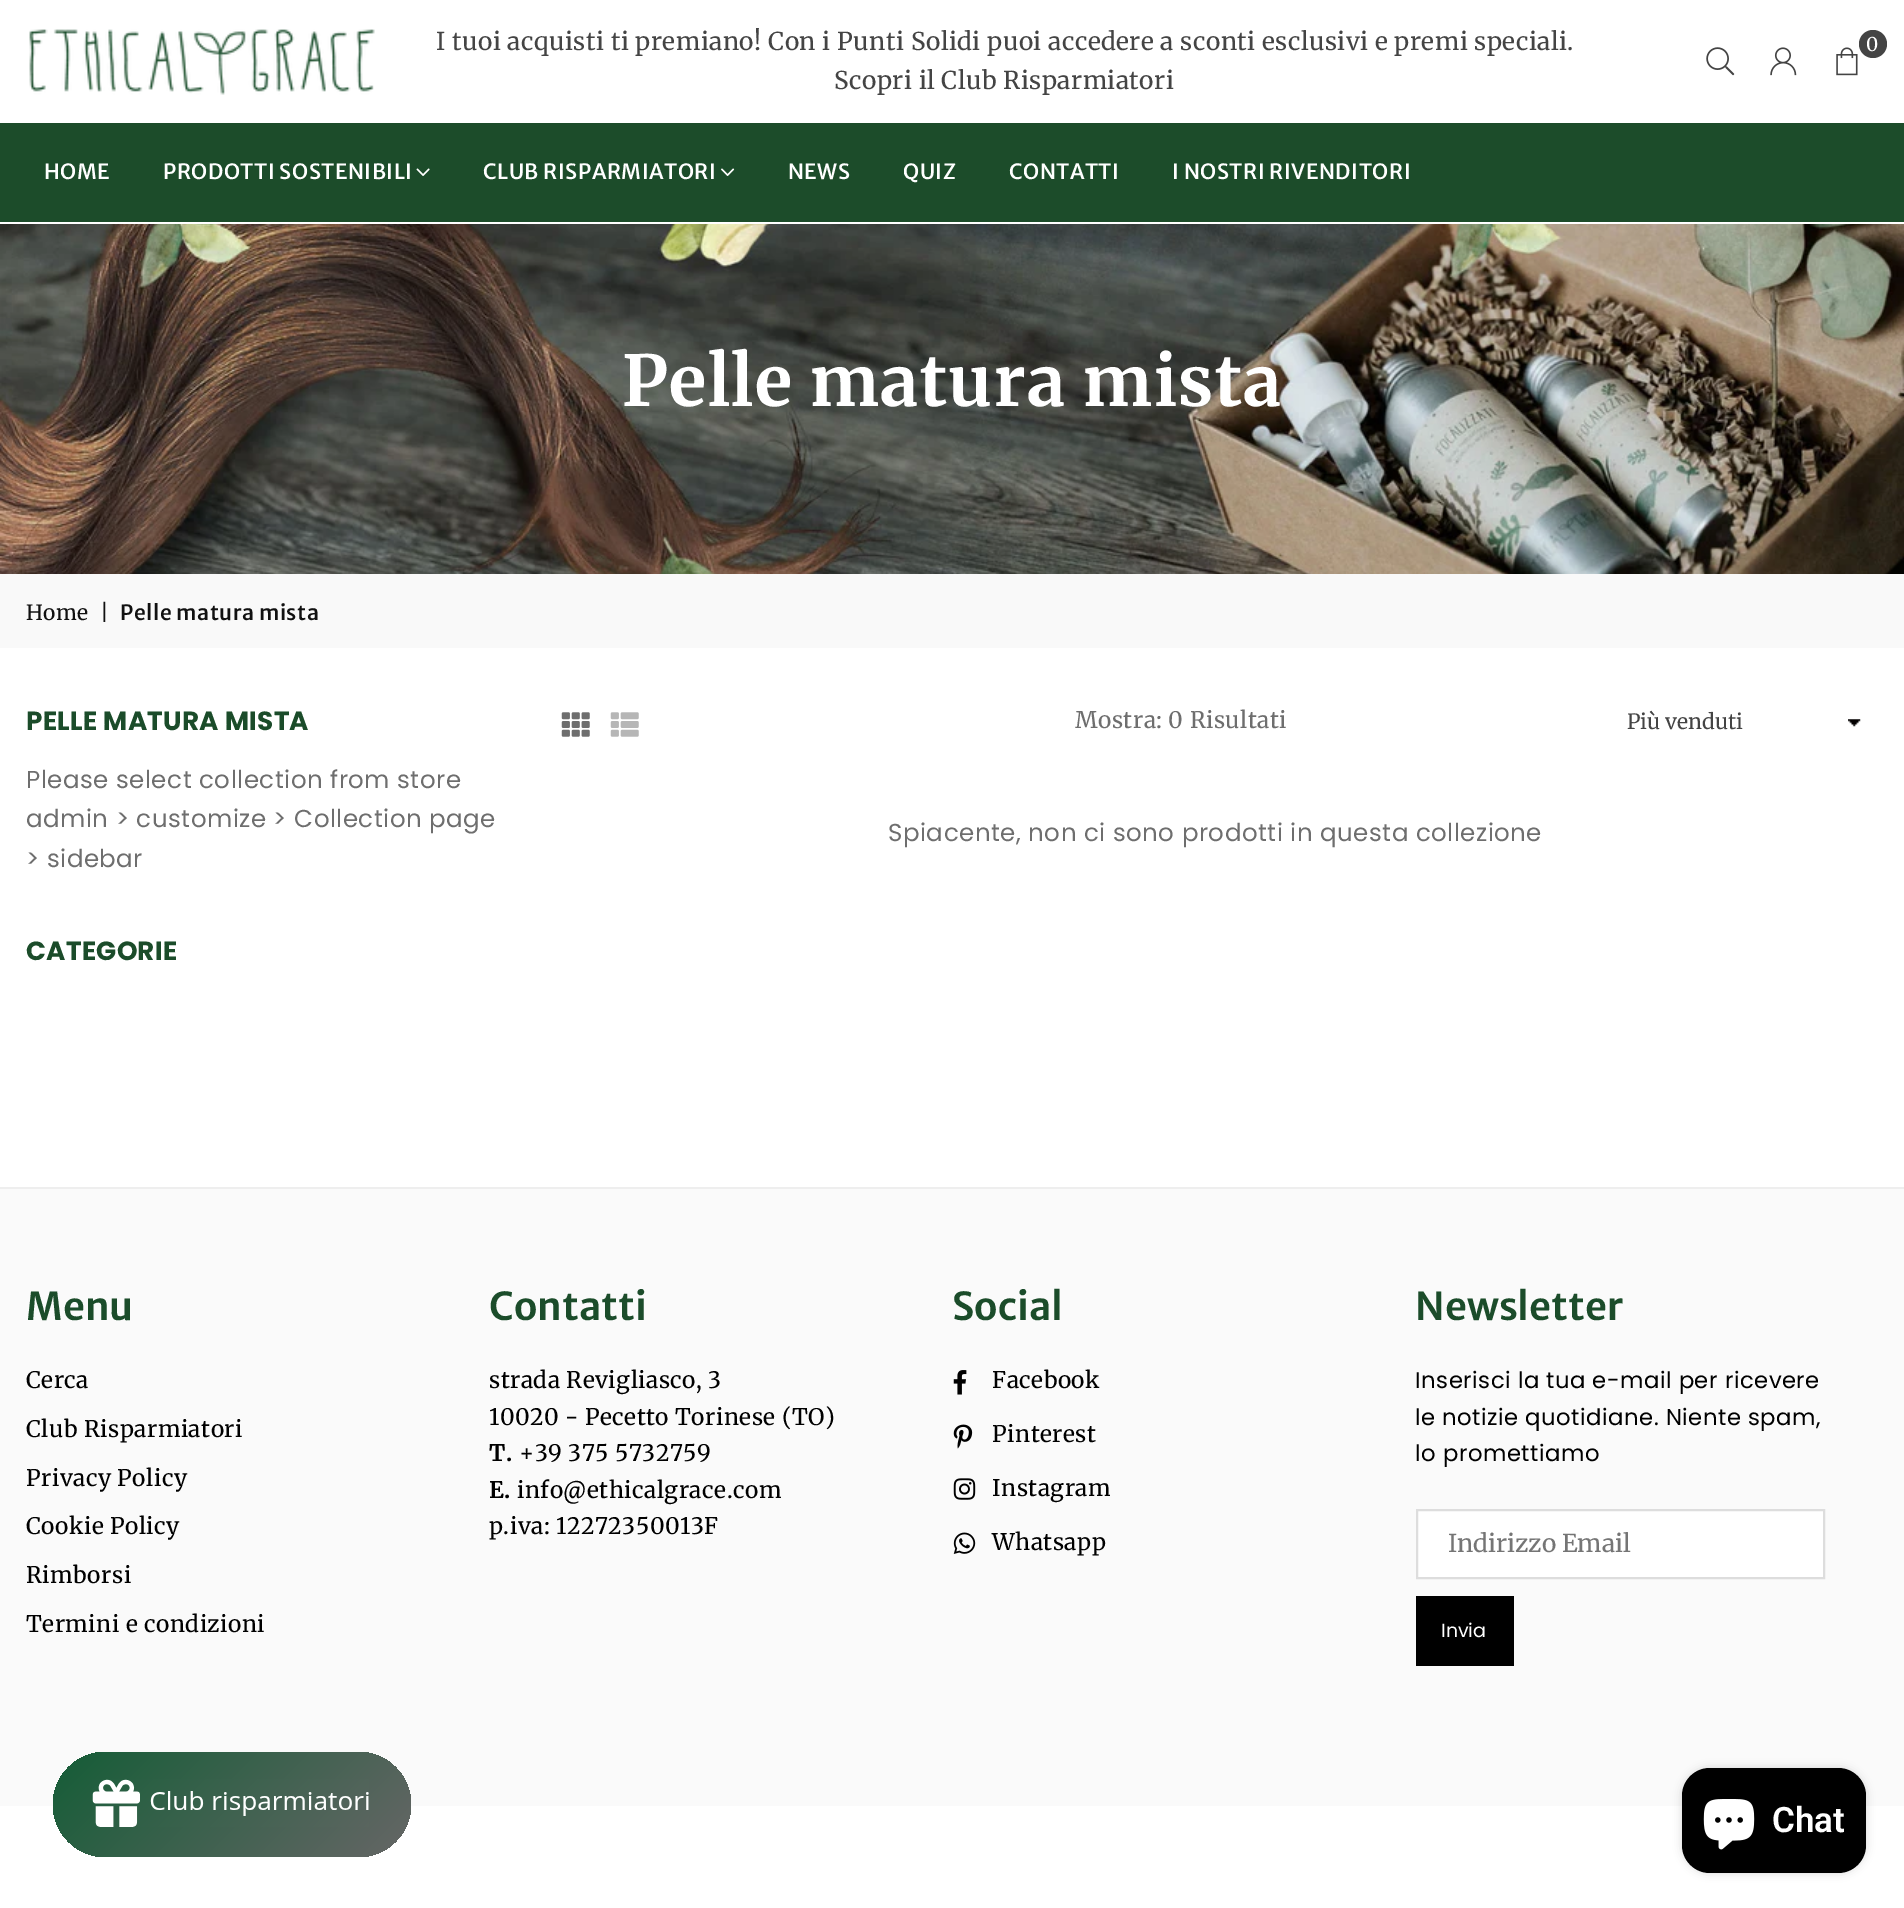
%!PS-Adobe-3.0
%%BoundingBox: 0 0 1904 1908
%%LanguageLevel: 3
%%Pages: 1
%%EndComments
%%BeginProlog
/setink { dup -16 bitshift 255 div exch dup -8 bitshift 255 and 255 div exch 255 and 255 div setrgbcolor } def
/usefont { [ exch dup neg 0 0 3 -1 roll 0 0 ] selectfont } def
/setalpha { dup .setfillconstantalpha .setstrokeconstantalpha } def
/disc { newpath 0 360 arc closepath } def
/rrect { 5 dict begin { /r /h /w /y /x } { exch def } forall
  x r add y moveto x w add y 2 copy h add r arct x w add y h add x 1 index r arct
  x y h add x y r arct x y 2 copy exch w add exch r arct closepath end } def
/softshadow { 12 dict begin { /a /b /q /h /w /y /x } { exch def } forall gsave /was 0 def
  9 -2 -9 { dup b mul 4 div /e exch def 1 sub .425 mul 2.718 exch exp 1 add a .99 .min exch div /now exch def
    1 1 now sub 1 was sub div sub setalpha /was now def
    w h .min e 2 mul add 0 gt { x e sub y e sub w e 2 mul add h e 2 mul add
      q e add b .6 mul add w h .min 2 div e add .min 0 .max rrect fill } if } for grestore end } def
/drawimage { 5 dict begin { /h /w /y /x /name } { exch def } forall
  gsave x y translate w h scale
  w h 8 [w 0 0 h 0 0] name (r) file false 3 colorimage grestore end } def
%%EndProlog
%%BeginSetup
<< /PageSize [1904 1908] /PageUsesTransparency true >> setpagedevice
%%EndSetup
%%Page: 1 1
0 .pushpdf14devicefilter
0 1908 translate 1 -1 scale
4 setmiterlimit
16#FFFFFF setink
0 0 1904 1908 rectfill
(img1.raw) 29 29 346 66 drawimage
/Merriweather-Regular 24.5 usefont
16#444444 setink
436 50 moveto 0.5 0 (I tuoi acquisti ti premiano! Con i Punti Solidi puoi accedere a sconti esclusivi e premi speciali.) ashow
834 89 moveto 0.5 0 (Scopri il Club Risparmiatori) ashow
1873 44 14 disc fill
/Merriweather-Regular 19 usefont
16#FFFFFF setink
1866 51 moveto 0.5 0 (0) ashow
(img2.raw) 1836 47 22 29 drawimage
(img3.raw) 1706 47 29 29 drawimage
(img4.raw) 1770 47 27 29 drawimage
16#1C4C2A setink
0 123 1904 99 rectfill
/MerriweatherSans-Medium 21 usefont
16#FFFFFF setink
44 179 moveto 0.5 0 (HOME) ashow
163 179 moveto 0.5 0 (PRODOTTI SOSTENIBILI) ashow
(img5.raw) 416 168 14 8 drawimage
483 179 moveto 0.5 0 (CLUB RISPARMIATORI) ashow
(img6.raw) 721 168 14 8 drawimage
788 179 moveto 0.5 0 (NEWS) ashow
903 179 moveto 0.5 0 (QUIZ) ashow
1009 179 moveto 0.5 0 (CONTATTI) ashow
1172 179 moveto 0.5 0 (I NOSTRI RIVENDITORI) ashow
(img7.raw) 0 224 1904 350 drawimage
/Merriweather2-Bold 70 usefont
622 406 moveto 1.4 0 (Pelle matura mista) ashow
16#F9F9F9 setink
0 574 1904 74 rectfill
/Merriweather-Regular 21 usefont
16#111111 setink
26 620 moveto 0.5 0 (Home) ashow
100 620 moveto 0.5 0 (|) ashow
/MerriweatherSans-Medium 21 usefont
120 620 moveto 0.5 0 (Pelle matura mista) ashow
/Poppins-Bold 26.25 usefont
16#1B4C2A setink
26 730 moveto 0.3 0 (PELLE MATURA MISTA) ashow
/Poppins-Regular 24.5 usefont
16#6E6E6E setink
26 788 moveto 0.5 0 (Please select collection from store) ashow
26 827 moveto 0.5 0 (admin > customize > Collection page) ashow
26 867 moveto 0.5 0 (> sidebar) ashow
/Poppins-Bold 26.25 usefont
16#1B4C2A setink
26 960 moveto 0.3 0 (CATEGORIE) ashow
(img8.raw) 561 712 29 25 drawimage
(img9.raw) 610 712 29 25 drawimage
/Merriweather-Regular 22.75 usefont
16#6E6E6E setink
1075 728 moveto 0.5 0 (Mostra: 0 Risultati) ashow
(img10.raw) 1848 719 13 8 drawimage
/Merriweather-Regular 21 usefont
16#444444 setink
1627 729 moveto (Più venduti) show
/Poppins-Regular 24.5 usefont
16#6E6E6E setink
888 841 moveto 0.5 0 (Spiacente, non ci sono prodotti in questa collezione) ashow
16#FAFAFA setink
0 1189 1904 617 rectfill
16#EEEEEE setink
0 1187 1904 2 rectfill
/MerriweatherSans-SemiBold 38.5 usefont
16#1B4C2A setink
26 1320 moveto (Menu) show
/Merriweather-Regular 22.75 usefont
16#000000 setink
26 1388 moveto 0.5 0 (Cerca) ashow
26 1437 moveto 0.5 0 (Club Risparmiatori) ashow
26 1486 moveto 0.5 0 (Privacy Policy) ashow
26 1534 moveto 0.5 0 (Cookie Policy) ashow
26 1583 moveto 0.5 0 (Rimborsi) ashow
26 1632 moveto 0.5 0 (Termini e condizioni) ashow
/MerriweatherSans-SemiBold 38.5 usefont
16#1B4C2A setink
489 1320 moveto (Contatti) show
/Merriweather-Regular 22.75 usefont
16#000000 setink
489 1388 moveto 0.5 0 (strada Revigliasco, 3) ashow
489 1425 moveto 0.5 0 (10020 - Pecetto Torinese \(TO\)) ashow
/Merriweather-Bold 22.75 usefont
489 1461 moveto 0.5 0 (T.) ashow
/Merriweather-Regular 22.75 usefont
519 1461 moveto 0.5 0 (+39 375 5732759) ashow
/Merriweather-Bold 22.75 usefont
489 1498 moveto 0.5 0 (E.) ashow
/Merriweather-Regular 22.75 usefont
517 1498 moveto 0.5 0 (info@ethicalgrace.com) ashow
489 1534 moveto 0.5 0 (p.iva: 12272350013F) ashow
/MerriweatherSans-SemiBold 38.5 usefont
16#1B4C2A setink
952 1320 moveto (Social) show
(img11.raw) 953 1370 14 25 drawimage
/Merriweather-Regular 22.75 usefont
16#000000 setink
992 1388 moveto 0.5 0 (Facebook) ashow
(img12.raw) 953 1424 20 25 drawimage
992 1442 moveto 0.5 0 (Pinterest) ashow
(img13.raw) 953 1478 23 22 drawimage
992 1496 moveto 0.5 0 (Instagram) ashow
(img14.raw) 953 1532 23 22 drawimage
992 1550 moveto 0.5 0 (Whatsapp) ashow
/MerriweatherSans-SemiBold 38.5 usefont
16#1B4C2A setink
1415 1320 moveto (Newsletter) show
/Poppins-Regular 22.75 usefont
16#000000 setink
1415 1388 moveto 0.5 0 (Inserisci la tua e-mail per ricevere) ashow
1415 1425 moveto 0.5 0 (le notizie quotidiane. Niente spam,) ashow
1415 1461 moveto 0.5 0 (lo promettiamo) ashow
16#FFFFFF setink
1417 1510 moveto 1824 1510 lineto 1824 1578 lineto 1417 1578 lineto closepath gsave fill grestore
16#DDDDDD setink
2 setlinewidth
stroke
/Merriweather-Regular 24.5 usefont
16#757575 setink
1448 1552 moveto (Indirizzo Email) show
16#000000 setink
1416 1596 98 70 rectfill
/Poppins-Regular 19 usefont
16#FFFFFF setink
1441 1637 moveto (Invia) show
gsave 53 1752 358 105 52.5 rrect clip newpath
<< /ShadingType 2 /ColorSpace /DeviceRGB /Coords [116 1688 348 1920] /Extend [true true] /Function << /FunctionType 2 /Domain [0 1] /C0 [0.082 0.365 0.216] /C1 [0.4 0.4 0.4] /N 1 >> >> shfill grestore
(img15.raw) 92 1779 277 48 drawimage
16#000000 setink
1682 1768 184 105 28 4.5 0.15 softshadow
1682 1768 184 105 28 rrect fill
(img16.raw) 1703 1799 52 51 drawimage
/Roboto-SemiBold 35 usefont
16#FFFFFF setink
1772 1832 moveto (Chat) show
.poppdf14devicefilter showpage
%%EOF
